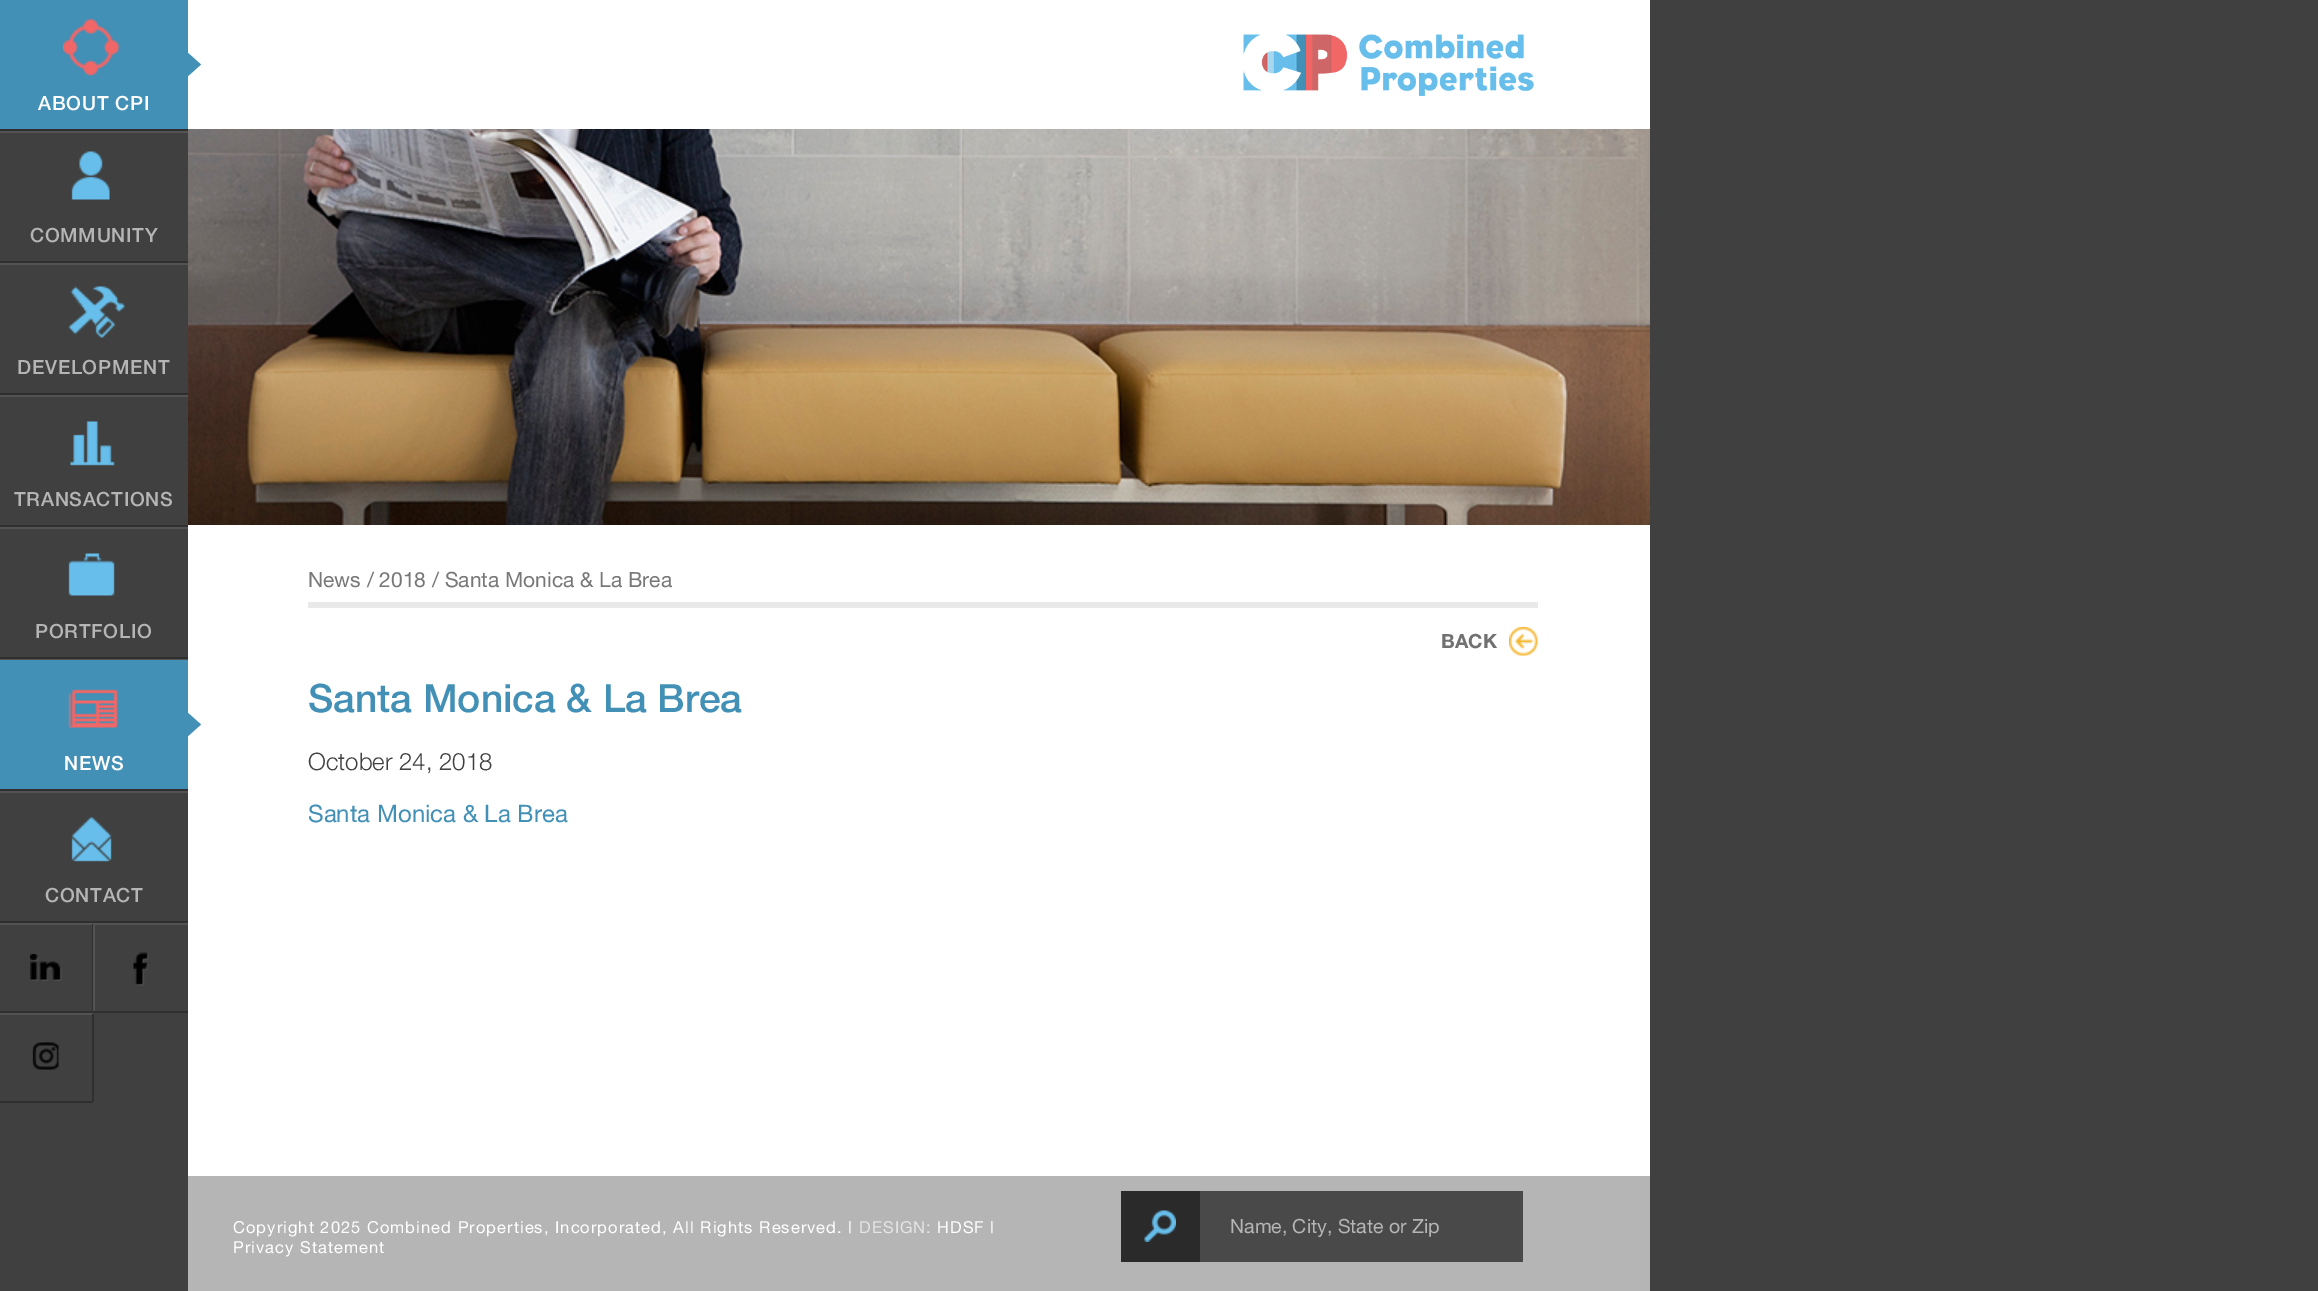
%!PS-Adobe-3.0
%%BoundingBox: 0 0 2318 1291
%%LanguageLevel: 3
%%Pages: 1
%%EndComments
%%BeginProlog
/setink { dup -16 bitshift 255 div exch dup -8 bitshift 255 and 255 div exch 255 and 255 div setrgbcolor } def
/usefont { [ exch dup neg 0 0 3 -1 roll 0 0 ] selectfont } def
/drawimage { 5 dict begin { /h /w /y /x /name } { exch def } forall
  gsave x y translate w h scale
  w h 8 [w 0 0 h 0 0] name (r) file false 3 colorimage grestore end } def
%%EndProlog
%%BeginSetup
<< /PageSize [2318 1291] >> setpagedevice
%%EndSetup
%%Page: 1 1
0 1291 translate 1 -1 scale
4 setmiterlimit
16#404040 setink
0 0 2318 1291 rectfill
16#FFFFFF setink
188 0 1462 1176 rectfill
(img1.raw) 1243 34 291 62 drawimage
16#302F2F setink
0 129 188 2 rectfill
16#4290B6 setink
0 0 188 129 rectfill
187.5 76.5 moveto 187.5 52.5 lineto 201 64.5 lineto closepath fill
(img2.raw) 63 19 56 57 drawimage
/HelveticaNeue-Medium 19.5 usefont
16#FFFFFF setink
38 110 moveto 0.75 0 (ABOUT CPI) ashow
16#545353 setink
0 131 188 2 rectfill
16#302F2F setink
0 261 188 2 rectfill
(img3.raw) 71 151 39 49 drawimage
16#B5B5B5 setink
30 242 moveto 0.75 0 (COMMUNITY) ashow
16#545353 setink
0 263 188 2 rectfill
16#302F2F setink
0 393 188 2 rectfill
(img4.raw) 68 286 57 52 drawimage
16#B5B5B5 setink
17 374 moveto 0.75 0 (DEVELOPMENT) ashow
16#545353 setink
0 395 188 2 rectfill
16#302F2F setink
0 525 188 2 rectfill
(img5.raw) 70 421 45 45 drawimage
16#B5B5B5 setink
14 506 moveto 0.75 0 (TRANSACTIONS) ashow
16#545353 setink
0 527 188 2 rectfill
16#302F2F setink
0 657 188 2 rectfill
(img6.raw) 68 553 47 43 drawimage
16#B5B5B5 setink
35 638 moveto 0.75 0 (PORTFOLIO) ashow
[
    [0 659 188 1 16#545353]
    [0 789 188 2 16#302F2F]
    [0 660 188 129 16#4290B6]
] { aload pop setink rectfill } forall
187.5 736.5 moveto 187.5 712.5 lineto 201 724.5 lineto closepath fill
(img7.raw) 68 689 50 39 drawimage
16#FFFFFF setink
64 770 moveto 0.75 0 (NEWS) ashow
16#545353 setink
0 791 188 2 rectfill
16#302F2F setink
0 921 188 2 rectfill
(img8.raw) 71 817 41 45 drawimage
16#B5B5B5 setink
45 902 moveto 0.75 0 (CONTACT) ashow
16#545353 setink
0 923 188 2 rectfill
16#302F2F setink
0 1011 188 2 rectfill
(img9.raw) 30 954 32 27 drawimage
92 924 1 87 rectfill
(img10.raw) 133 952 16 34 drawimage
[
    [93 924 2 87 16#545353]
    [0 1013 93 2 16#545353]
    [0 1101 93 2 16#302F2F]
] { aload pop setink rectfill } forall
(img11.raw) 32 1042 27 28 drawimage
92 1014 2 87 rectfill
(img12.raw) 188 129 1462 396 drawimage
16#EAE9E9 setink
308 602 1230 6 rectfill
/HelveticaNeue-Regular 21 usefont
16#777777 setink
308 587 moveto (News / 2018 / Santa Monica & La Brea) show
(img13.raw) 1509 627 29 29 drawimage
/HelveticaNeue-Bold 19.5 usefont
16#717171 setink
1441 648 moveto (BACK) show
/HelveticaNeue-Medium 39 usefont
16#4290B6 setink
308 712 moveto (Santa Monica & La Brea) show
/HelveticaNeue-Light 24 usefont
16#404040 setink
308 770 moveto (October 24, 2018) show
/HelveticaNeue-Regular 24 usefont
16#4290B6 setink
308 822 moveto (Santa Monica & La Brea) show
16#B5B5B5 setink
188 1176 1462 115 rectfill
/HelveticaNeue-Regular 16.5 usefont
16#FFFFFF setink
233 1233 moveto 1.05 0 (Copyright 2025 Combined Properties, Incorporated, All Rights Reserved. |) ashow
16#E6E5E5 setink
859 1233 moveto 1.05 0 (DESIGN:) ashow
16#FFFFFF setink
937 1233 moveto 1.05 0 (HDSF |) ashow
233 1253 moveto 1.05 0 (Privacy Statement) ashow
16#2A2A2A setink
1121 1191 79 71 rectfill
(img14.raw) 1144 1210 32 32 drawimage
16#494949 setink
1200 1191 323 71 rectfill
/HelveticaNeue-Regular 19.5 usefont
16#B5B5B5 setink
1230 1233 moveto (Name, City, State or Zip) show
showpage
%%EOF
